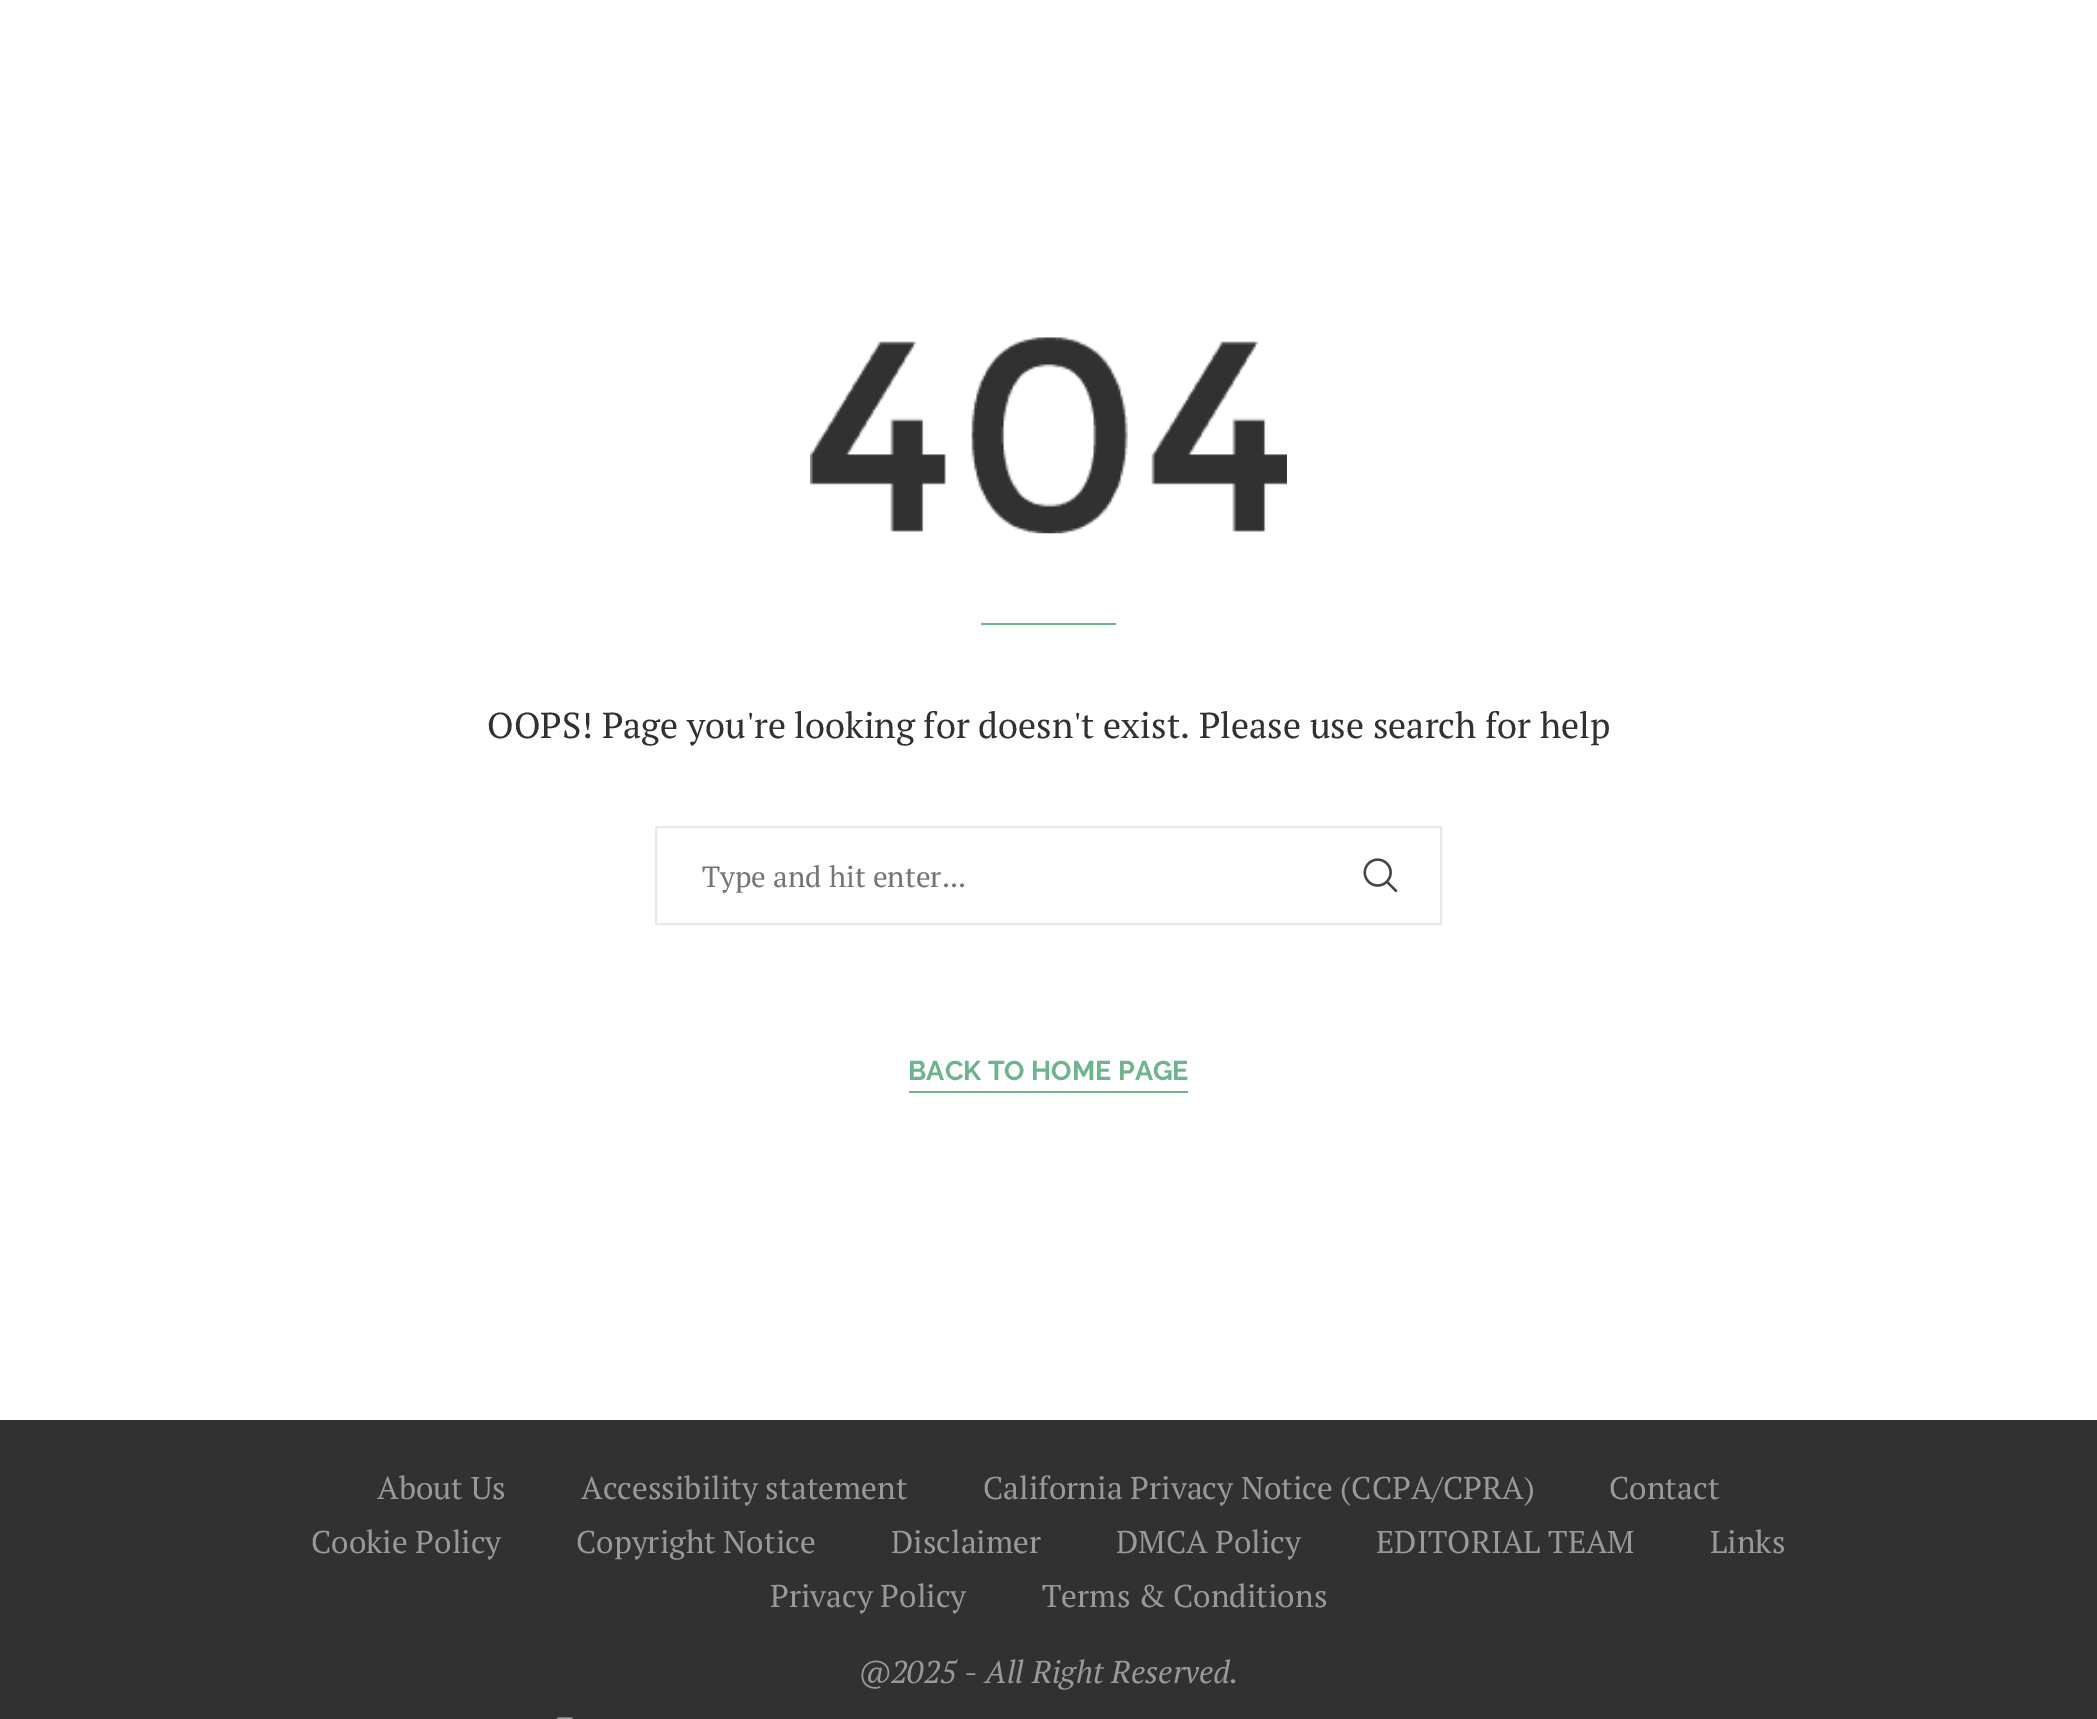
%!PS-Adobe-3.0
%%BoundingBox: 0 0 2097 1719
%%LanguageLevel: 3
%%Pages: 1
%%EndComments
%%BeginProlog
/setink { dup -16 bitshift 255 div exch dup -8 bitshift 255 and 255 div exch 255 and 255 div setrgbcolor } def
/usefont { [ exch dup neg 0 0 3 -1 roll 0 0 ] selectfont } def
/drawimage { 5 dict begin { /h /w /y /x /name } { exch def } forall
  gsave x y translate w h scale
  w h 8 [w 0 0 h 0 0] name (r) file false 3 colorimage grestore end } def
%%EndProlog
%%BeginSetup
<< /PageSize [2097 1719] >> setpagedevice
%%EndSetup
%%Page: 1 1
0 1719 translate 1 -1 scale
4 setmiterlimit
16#FFFFFF setink
0 0 2097 1719 rectfill
(img1.raw) 810 337 477 197 drawimage
16#6EB48C setink
981 623 135 2 rectfill
/PTSerif-Regular 36 usefont
16#313131 setink
487 738 moveto (OOPS! Page you're looking for doesn't exist. Please use search for help) show
16#E9E9E9 setink
2 setlinewidth
656 827 785 97 rectstroke
/PTSerif-Regular 29.25 usefont
16#757575 setink
702 887 moveto (Type and hit enter...) show
(img2.raw) 1363 858 35 35 drawimage
/Raleway-Bold 27 usefont
16#6EB48C setink
908 1080 moveto (BACK TO HOME PAGE) show
909 1091 279 2 rectfill
16#313131 setink
0 1420 2097 299 rectfill
/PTSerif-Regular 31.5 usefont
16#999999 setink
[
    [(About Us) 377 1499]
    [(Accessibility statement) 581 1499]
    [(California Privacy Notice \(CCPA/CPRA\)) 983 1499]
    [(Contact) 1609 1499]
    [(Cookie Policy) 311 1553]
    [(Copyright Notice) 576 1553]
    [(Disclaimer) 891 1553]
    [(DMCA Policy) 1116 1553]
    [(EDITORIAL TEAM) 1376 1553]
    [(Links) 1710 1553]
    [(Privacy Policy) 770 1607]
    [(Terms & Conditions) 1042 1607]
] { aload pop moveto show } forall
/PTSerif-Italic 31.5 usefont
859 1683 moveto (@2025 - All Right Reserved.) show
555 1727 moveto (–) show
showpage
%%EOF
